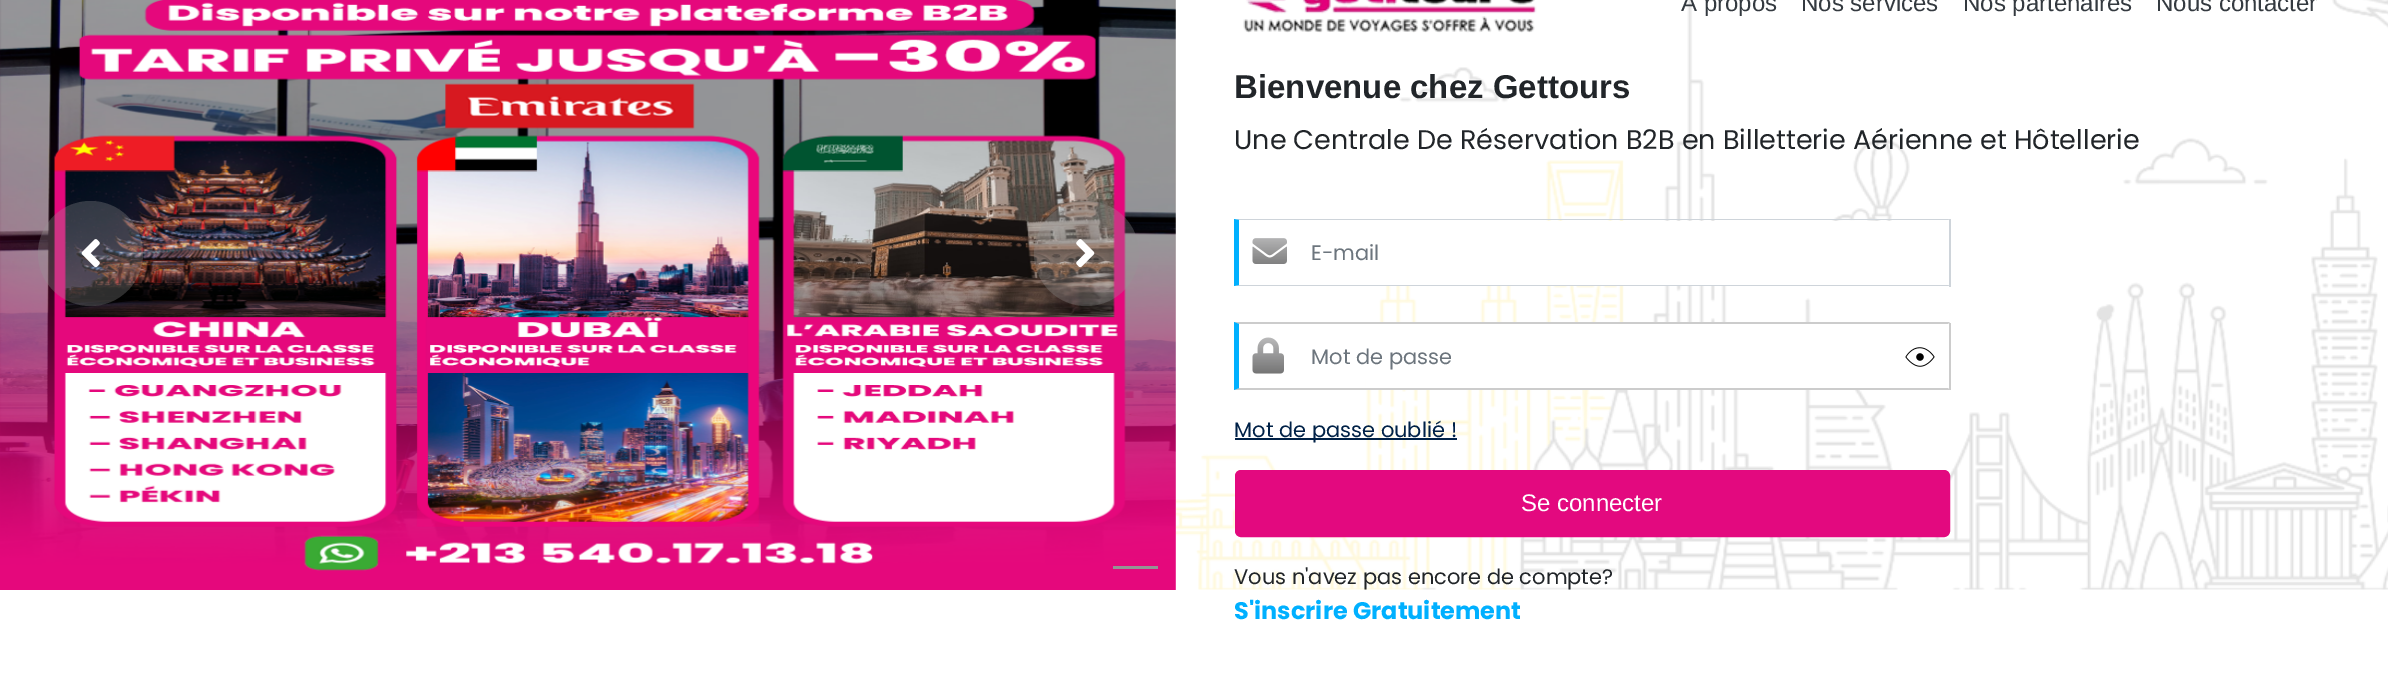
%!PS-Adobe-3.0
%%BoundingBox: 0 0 2388 673
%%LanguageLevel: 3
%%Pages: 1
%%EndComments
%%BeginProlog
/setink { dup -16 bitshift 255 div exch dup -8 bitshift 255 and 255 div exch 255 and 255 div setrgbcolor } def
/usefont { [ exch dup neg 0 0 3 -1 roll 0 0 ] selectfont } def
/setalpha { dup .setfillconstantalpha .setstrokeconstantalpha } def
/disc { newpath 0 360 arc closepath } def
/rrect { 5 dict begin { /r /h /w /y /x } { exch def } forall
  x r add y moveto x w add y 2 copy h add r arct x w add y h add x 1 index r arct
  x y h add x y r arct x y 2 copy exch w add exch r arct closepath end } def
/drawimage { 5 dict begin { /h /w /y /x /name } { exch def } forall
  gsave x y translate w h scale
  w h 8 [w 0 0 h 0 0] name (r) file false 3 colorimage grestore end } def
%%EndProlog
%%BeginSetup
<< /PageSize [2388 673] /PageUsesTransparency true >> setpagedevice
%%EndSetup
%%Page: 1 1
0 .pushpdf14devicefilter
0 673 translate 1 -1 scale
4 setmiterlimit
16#FFFFFF setink
0 0 2388 673 rectfill
(img1.raw) 0 0 1176 590 drawimage
0.3 setalpha
16#969696 setink
90.5 253.5 52.5 disc fill
1 setalpha
(img2.raw) 81 239 19 29 drawimage
0.3 setalpha
1086.5 253.5 52.5 disc fill
1 setalpha
(img3.raw) 1076 239 19 29 drawimage
16#949494 setink
1113 566 45 3 rectfill
(img4.raw) 1176 0 1212 590 drawimage
(img5.raw) 1243 0 294 33 drawimage
/LiberationSans-Regular 24 usefont
16#343A40 setink
[
    [(A propos) 1681 11]
    [(Nos services) 1801 11]
    [(Nos partenaires) 1963 11]
    [(Nous contacter) 2156 11]
] { aload pop moveto show } forall
/LiberationSans-Bold 33 usefont
16#212529 setink
1234 98 moveto (Bienvenue chez Gettours) show
/Poppins-Regular 27 usefont
1234 149 moveto (Une Centrale De Réservation B2B en Billetterie Aérienne et Hôtellerie) show
(img6.raw) 1252 238 35 26 drawimage
16#FFFFFF setink
1385 221 520 64 rectfill
16#CED4DA setink
1234 219 moveto 1950 219 lineto 1948 220 lineto 1239 220 lineto closepath fill
1949 219 2 68 rectfill
1950 286 moveto 1234 286 lineto 1239 285 lineto 1948 285 lineto closepath fill
16#00B0FF setink
1234 286 moveto 1234 219 lineto 1239 220 lineto 1239 285 lineto closepath fill
/Poppins-Regular 21 usefont
16#6C757D setink
1311 260 moveto (E-mail) show
(img7.raw) 1252 337 32 37 drawimage
16#FFFFFF setink
1366 324 494 65 rectfill
16#CCCCCC setink
1234 322 moveto 1950 322 lineto 1948 324 lineto 1239 324 lineto closepath fill
1949 323 2 67 rectfill
1950 390 moveto 1234 390 lineto 1239 388 lineto 1948 388 lineto closepath fill
16#00B0FF setink
1234 390 moveto 1234 322 lineto 1239 324 lineto 1239 388 lineto closepath fill
16#6C757D setink
1311 364 moveto (Mot de passe) show
(img8.raw) 1905 347 30 20 drawimage
16#002147 setink
1235 438 222 2 rectfill
1234 437 moveto (Mot de passe oublié !) show
16#E3097F setink
1236 471 713 65 5 rrect gsave fill grestore
2 setlinewidth
stroke
/LiberationSans-Regular 24 usefont
16#FFFFFF setink
1521 511 moveto (Se connecter) show
/Poppins-Regular 21 usefont
16#212529 setink
1234 584 moveto (Vous n'avez pas encore de compte?) show
/Poppins-Bold 24 usefont
16#00B0FF setink
1234 619 moveto (S'inscrire Gratuitement) show
.poppdf14devicefilter showpage
%%EOF
